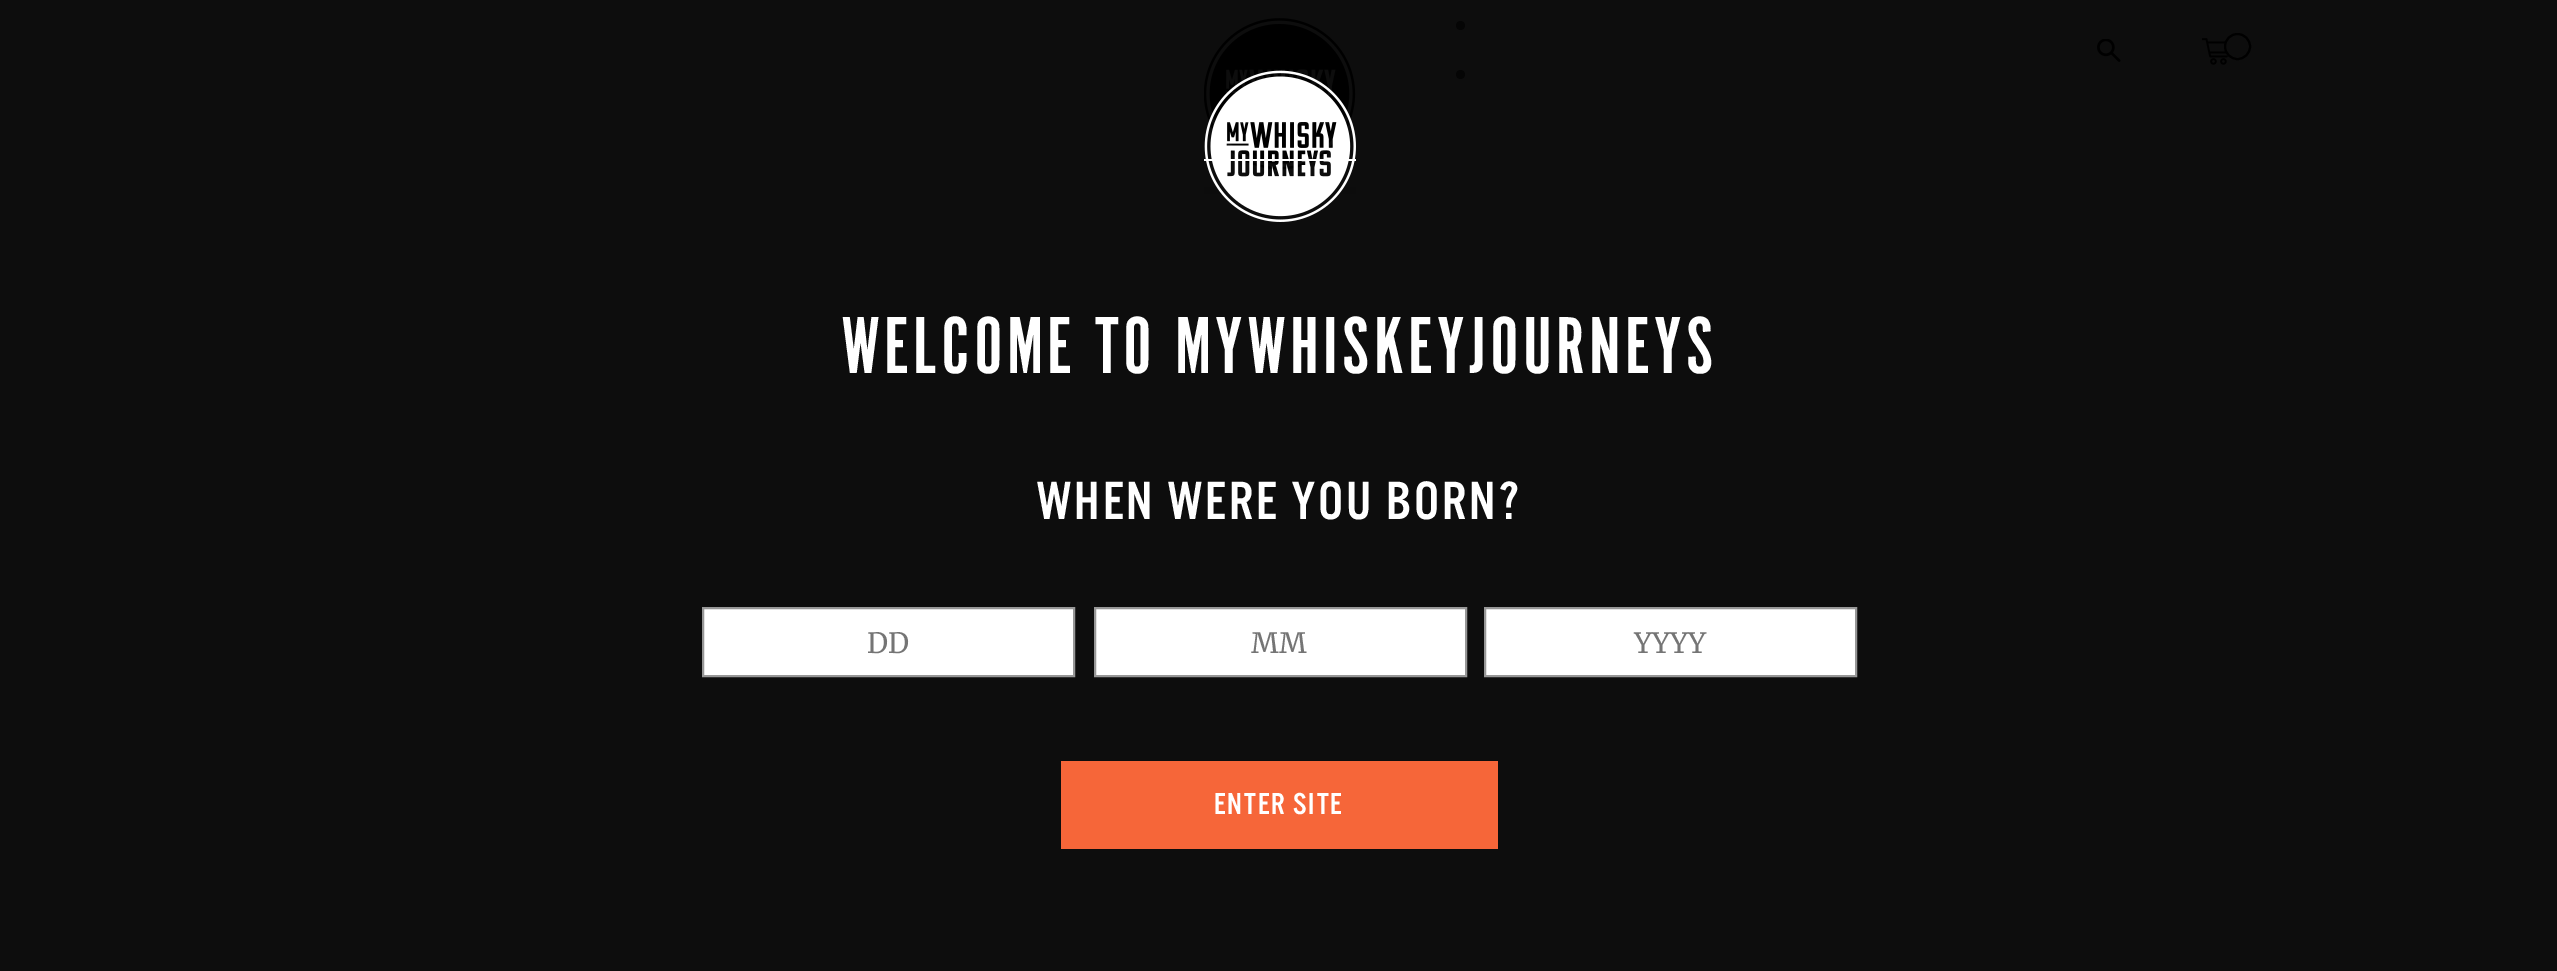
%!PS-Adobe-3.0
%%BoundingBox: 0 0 2557 971
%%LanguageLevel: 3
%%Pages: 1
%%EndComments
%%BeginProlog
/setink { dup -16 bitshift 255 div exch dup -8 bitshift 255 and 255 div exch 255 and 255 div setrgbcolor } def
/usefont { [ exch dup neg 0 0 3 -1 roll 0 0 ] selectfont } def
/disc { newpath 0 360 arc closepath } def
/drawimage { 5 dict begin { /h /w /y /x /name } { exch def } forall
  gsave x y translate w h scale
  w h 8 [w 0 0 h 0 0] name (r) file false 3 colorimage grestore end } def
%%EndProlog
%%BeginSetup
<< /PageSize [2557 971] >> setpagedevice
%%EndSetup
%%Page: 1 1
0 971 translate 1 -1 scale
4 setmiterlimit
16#0D0D0D setink
0 0 2557 971 rectfill
(img1.raw) 1204 18 152 152 drawimage
16#050505 setink
1460.5 25.5 4.5 disc fill
1460.5 74.5 4.5 disc fill
(img2.raw) 2097 39 24 23 drawimage
(img3.raw) 2202 38 26 27 drawimage
16#0D0D0D setink
2237.5 46.5 12.5 disc gsave fill grestore
16#000000 setink
2 setlinewidth
stroke
16#FFFFFF setink
1204 159 152 2 rectfill
(img4.raw) 1204 70 152 152 drawimage
/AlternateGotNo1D-Regular 84 usefont
841 373 moveto 4.2 0 (WELCOME TO MYWHISKEYJOURNEYS) ashow
/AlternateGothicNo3-Regular 56 usefont
1036 519 moveto 2.75 0 (WHEN WERE YOU BORN?) ashow
703 608 moveto 1074 608 lineto 1074 676 lineto 703 676 lineto closepath gsave fill grestore
16#979797 setink
stroke
/Merriweather-Light 28 usefont
16#757575 setink
867 653 moveto (DD) show
16#FFFFFF setink
1095 608 moveto 1466 608 lineto 1466 676 lineto 1095 676 lineto closepath gsave fill grestore
16#979797 setink
stroke
16#757575 setink
1251 653 moveto (MM) show
16#FFFFFF setink
1485 608 moveto 1856 608 lineto 1856 676 lineto 1485 676 lineto closepath gsave fill grestore
16#979797 setink
stroke
16#757575 setink
1634 653 moveto (YYYY) show
16#F66639 setink
1061 761 437 88 rectfill
/AlternateGothicNo3-Regular 31.5 usefont
16#FFFFFF setink
1214 814 moveto 1.75 0 (ENTER SITE) ashow
showpage
%%EOF
